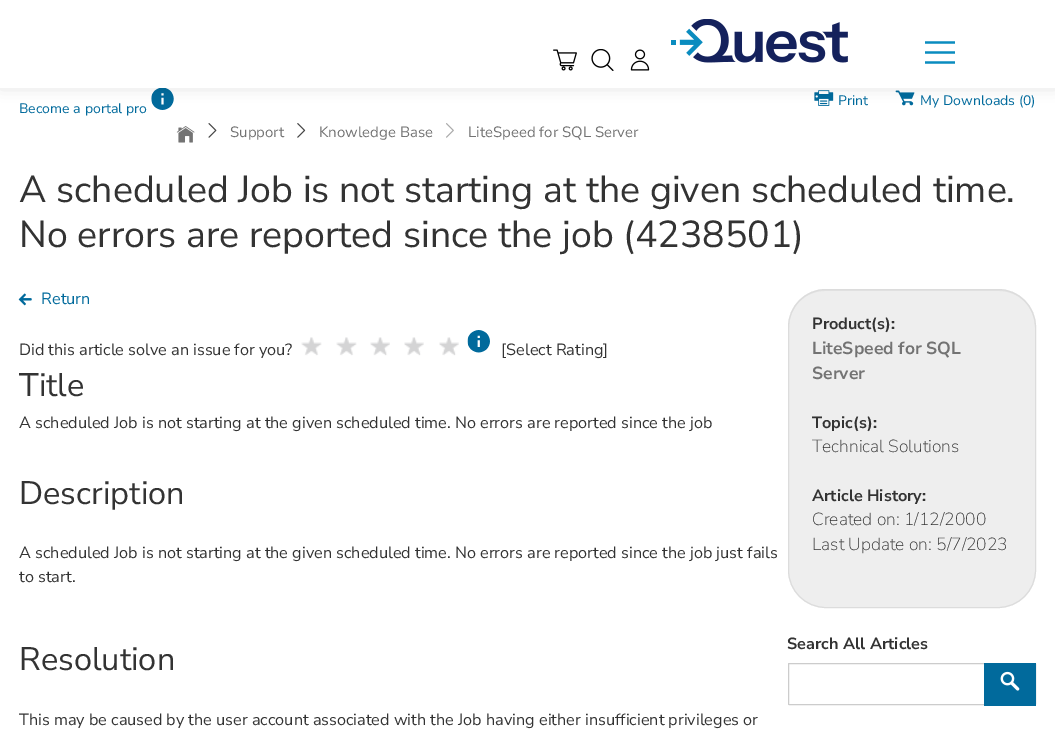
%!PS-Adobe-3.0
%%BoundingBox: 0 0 1055 744
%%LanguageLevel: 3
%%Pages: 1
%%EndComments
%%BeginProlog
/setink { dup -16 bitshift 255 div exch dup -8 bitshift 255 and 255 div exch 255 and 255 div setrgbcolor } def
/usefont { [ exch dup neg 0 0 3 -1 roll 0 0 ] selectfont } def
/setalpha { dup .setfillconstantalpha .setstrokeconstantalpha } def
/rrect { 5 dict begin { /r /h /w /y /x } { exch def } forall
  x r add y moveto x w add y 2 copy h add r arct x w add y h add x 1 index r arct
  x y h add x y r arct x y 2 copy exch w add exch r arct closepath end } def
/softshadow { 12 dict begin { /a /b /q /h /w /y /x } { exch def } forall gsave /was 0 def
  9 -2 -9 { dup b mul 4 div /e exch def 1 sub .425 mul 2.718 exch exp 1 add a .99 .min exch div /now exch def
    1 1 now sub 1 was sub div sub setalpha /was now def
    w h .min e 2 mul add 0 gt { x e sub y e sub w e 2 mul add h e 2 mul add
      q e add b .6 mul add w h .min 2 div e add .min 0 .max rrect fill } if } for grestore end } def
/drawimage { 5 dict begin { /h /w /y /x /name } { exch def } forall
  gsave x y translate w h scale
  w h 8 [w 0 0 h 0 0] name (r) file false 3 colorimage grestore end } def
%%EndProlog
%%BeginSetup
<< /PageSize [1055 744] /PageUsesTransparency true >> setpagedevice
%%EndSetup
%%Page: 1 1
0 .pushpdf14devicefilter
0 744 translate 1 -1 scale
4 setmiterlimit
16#FFFFFF setink
0 0 1055 744 rectfill
(img6.raw) 814 90 20 16 drawimage
(img7.raw) 895 90 20 16 drawimage
(img8.raw) 151 88 23 22 drawimage
16#000000 setink
1 -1 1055 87 0 7.5 0.16 softshadow
16#FFFFFF setink
0 0 1055 88 rectfill
(img1.raw) 553 49 24 22 drawimage
(img2.raw) 591 49 23 22 drawimage
(img3.raw) 630 49 20 22 drawimage
(img4.raw) 671 19 177 44 drawimage
(img5.raw) 925 41 30 23 drawimage
/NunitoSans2-Regular 13.75 usefont
16#016A9C setink
[
    [(Print) 838 105]
    [(My Downloads \(0\)) 920 105]
    [(Become a portal pro) 19 113]
] { aload pop moveto show } forall
(img9.raw) 176 126 19 17 drawimage
(img10.raw) 208 123 9 15 drawimage
/NunitoSans-Regular 15 usefont
16#737373 setink
230 137 moveto (Support) show
(img11.raw) 297 123 9 15 drawimage
319 137 moveto (Knowledge Base) show
(img12.raw) 446 123 8 15 drawimage
468 137 moveto (LiteSpeed for SQL Server) show
/NunitoSans-Regular 37.5 usefont
16#333333 setink
19 202 moveto (A scheduled Job is not starting at the given scheduled time.) show
19 247 moveto (No errors are reported since the job \(4238501\)) show
(img13.raw) 18 293 14 13 drawimage
/NunitoSans-Regular 16.25 usefont
16#016A9C setink
41 304 moveto (Return) show
16#333333 setink
19 355 moveto (Did this article solve an issue for you?) show
(img14.raw) 301 337 21 19 drawimage
(img14.raw) 336 337 21 19 drawimage
(img15.raw) 370 337 20 19 drawimage
(img16.raw) 404 337 20 19 drawimage
(img17.raw) 439 337 20 19 drawimage
(img18.raw) 467 330 23 23 drawimage
501 355 moveto ([Select Rating]) show
/NunitoSans-Regular 32.5 usefont
19 396 moveto (Title) show
/NunitoSans-Regular 16.25 usefont
19 428 moveto (A scheduled Job is not starting at the given scheduled time. No errors are reported since the job) show
/NunitoSans-Regular 32.5 usefont
19 504 moveto (Description) show
/NunitoSans-Regular 16.25 usefont
19 558 moveto (A scheduled Job is not starting at the given scheduled time. No errors are reported since the job just fails) show
19 582 moveto (to start.) show
/NunitoSans-Regular 32.5 usefont
19 670 moveto (Resolution) show
/NunitoSans-Regular 16.25 usefont
19 725 moveto (This may be caused by the user account associated with the Job having either insufficient privileges or) show
16#EEEEEE setink
788 289 248 319 38 rrect fill
16#E2E2E2 setink
825 291 moveto 999 291 lineto 1019 291 1035 307 1035 328 curveto 1035 326 lineto 1035 306 1019 290 999 290 curveto 825 290 lineto 805 290 789 306 789 326 curveto 789 328 lineto 789 307 805 291 825 291 curveto closepath fill
16#DCDCDC setink
788.5 289.5 247 318 37.5 rrect stroke
/NunitoSans-Bold 16.25 usefont
16#333333 setink
812 329 moveto (Product\(s\):) show
/NunitoSans-Bold 17.5 usefont
16#737373 setink
812 354 moveto (LiteSpeed for SQL) show
812 379 moveto (Server) show
/NunitoSans-Bold 16.25 usefont
16#333333 setink
812 428 moveto (Topic\(s\):) show
/NunitoSans-ExtraLight 17.5 usefont
812 452 moveto (Technical Solutions) show
/NunitoSans-Bold 16.25 usefont
812 501 moveto (Article History:) show
/NunitoSans-ExtraLight 17.5 usefont
812 525 moveto (Created on: 1/12/2000) show
812 550 moveto (Last Update on: 5/7/2023) show
/NunitoSans-Bold 16.25 usefont
787 649 moveto (Search All Articles) show
16#CCCCCC setink
788.5 663.5 247 41 0.5 rrect stroke
16#016A9C setink
984 663 52 43 rectfill
(img19.raw) 1000 671 20 20 drawimage
.poppdf14devicefilter showpage
%%EOF
